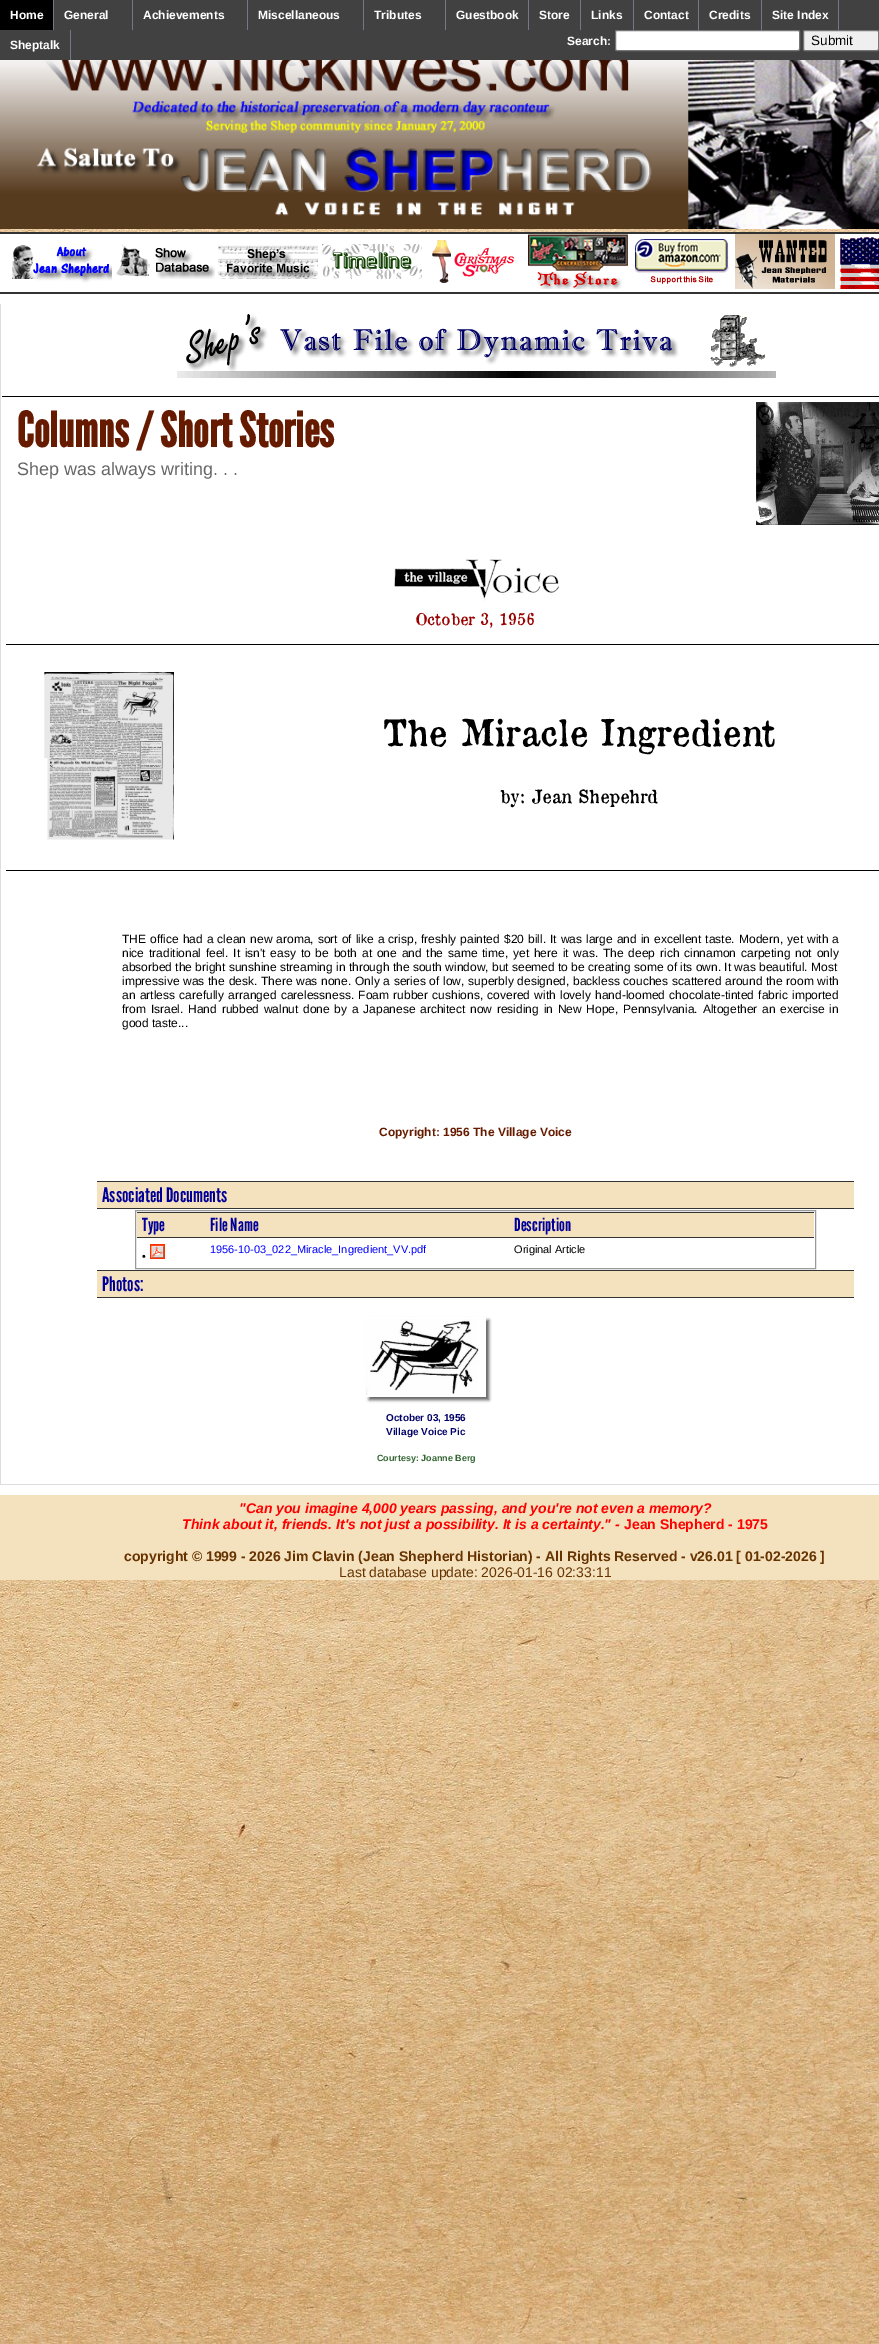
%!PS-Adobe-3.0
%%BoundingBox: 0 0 879 2344
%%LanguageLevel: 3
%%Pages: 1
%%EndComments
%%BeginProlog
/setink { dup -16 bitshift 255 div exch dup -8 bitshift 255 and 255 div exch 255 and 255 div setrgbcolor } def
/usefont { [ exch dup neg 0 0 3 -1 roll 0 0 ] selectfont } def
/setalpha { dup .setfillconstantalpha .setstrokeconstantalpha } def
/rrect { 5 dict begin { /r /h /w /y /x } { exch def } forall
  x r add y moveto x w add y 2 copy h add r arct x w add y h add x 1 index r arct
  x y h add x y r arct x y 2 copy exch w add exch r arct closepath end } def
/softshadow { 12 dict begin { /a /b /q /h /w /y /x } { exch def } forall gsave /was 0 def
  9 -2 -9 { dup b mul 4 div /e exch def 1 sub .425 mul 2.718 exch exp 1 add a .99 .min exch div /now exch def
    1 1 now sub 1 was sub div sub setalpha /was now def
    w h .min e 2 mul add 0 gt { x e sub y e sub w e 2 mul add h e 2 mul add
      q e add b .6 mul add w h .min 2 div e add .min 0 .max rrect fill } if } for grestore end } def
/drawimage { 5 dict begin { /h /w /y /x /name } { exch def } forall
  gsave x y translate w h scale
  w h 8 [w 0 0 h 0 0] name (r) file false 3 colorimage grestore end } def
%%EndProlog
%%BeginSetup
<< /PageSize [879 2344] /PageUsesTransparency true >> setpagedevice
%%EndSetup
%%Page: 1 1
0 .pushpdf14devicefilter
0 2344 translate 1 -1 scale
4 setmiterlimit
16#FFFFFF setink
0 0 879 2344 rectfill
(img1.raw) 0 229 879 2115 drawimage
[
    [0 0 879 60 16#414141]
    [0 0 53 30 16#000000]
    [53 0 1 30 16#777788]
] { aload pop setink rectfill } forall
/LiberationSans-Bold 12 usefont
16#FFFFFF setink
10 19 moveto (Home) show
16#777788 setink
132 0 1 30 rectfill
16#FFFFFF setink
64 19 moveto (General) show
16#777788 setink
247 0 1 30 rectfill
16#FFFFFF setink
143 19 moveto (Achievements) show
16#777788 setink
363 0 1 30 rectfill
16#FFFFFF setink
258 19 moveto (Miscellaneous) show
16#777788 setink
445 0 1 30 rectfill
16#FFFFFF setink
374 19 moveto (Tributes) show
16#777788 setink
528 0 1 30 rectfill
16#FFFFFF setink
456 19 moveto (Guestbook) show
16#777788 setink
580 0 1 30 rectfill
16#FFFFFF setink
539 19 moveto (Store) show
16#777788 setink
633 0 1 30 rectfill
16#FFFFFF setink
591 19 moveto (Links) show
16#777788 setink
698 0 1 30 rectfill
16#FFFFFF setink
644 19 moveto (Contact) show
16#777788 setink
761 0 1 30 rectfill
16#FFFFFF setink
709 19 moveto (Credits) show
16#777788 setink
838 0 1 30 rectfill
16#FFFFFF setink
772 19 moveto (Site Index) show
16#777788 setink
70 30 1 30 rectfill
16#FFFFFF setink
10 49 moveto (Sheptalk) show
567 45 moveto (Search:) show
615.5 30.5 184 20 1.5 rrect gsave fill grestore
16#767676 setink
stroke
16#EFEFEF setink
803.5 30.5 75 20 1.5 rrect gsave fill grestore
16#767676 setink
stroke
/LiberationSans-Regular 13.5 usefont
16#000000 setink
811 45 moveto (Submit) show
(img2.raw) 0 60 879 169 drawimage
[
    [0 234 879 58 16#FFFFFF]
    [0 232 879 2 16#333333]
    [0 292 879 2 16#333333]
] { aload pop setink rectfill } forall
(img3.raw) 12 245 100 38 drawimage
(img4.raw) 116 244 99 35 drawimage
(img5.raw) 218 244 100 35 drawimage
(img6.raw) 322 244 100 35 drawimage
(img7.raw) 432 240 83 43 drawimage
(img8.raw) 528 234 100 55 drawimage
(img9.raw) 635 239 94 45 drawimage
(img10.raw) 735 234 100 55 drawimage
(img11.raw) 840 237 39 52 drawimage
[
    [0 294 879 1201 16#FFFFFF]
    [0 1484 879 1 16#DDDDDD]
    [0 304 1 1181 16#DDDDDD]
] { aload pop setink rectfill } forall
(img12.raw) 177 314 599 64 drawimage
16#000000 setink
2 396 877 1 rectfill
/LeagueGothic-Bold 48 usefont
16#661A00 setink
17 447 moveto (Columns / Short Stories) show
/LiberationSans-Regular 18 usefont
16#666666 setink
17 475 moveto (Shep was always writing. . .) show
(img13.raw) 756 402 123 123 drawimage
16#000000 setink
6 644 873 1 rectfill
(img14.raw) 394 559 165 42 drawimage
/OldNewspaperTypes-Medium 16 usefont
16#990000 setink
415 625 moveto (October 3, 1956) show
16#000000 setink
6 870 873 1 rectfill
(img15.raw) 44 672 130 168 drawimage
/OldNewspaperTypes-Medium 36 usefont
382 746 moveto (The Miracle Ingredient) show
/OldNewspaperTypes-Medium 18 usefont
500 803 moveto (by: Jean Shepehrd) show
/LiberationSans-Regular 12 usefont
122 943 moveto 0.7 0 32 (THE office had a clean new aroma, sort of like a crisp, freshly painted $20 bill. It was large and in excellent taste. Modern, yet with a) widthshow
122 957 moveto 1.5 0 32 (nice traditional feel. It isn't easy to be both at one and the same time, yet here it was. The deep rich cinnamon carpeting not only) widthshow
122 971 moveto (absorbed the bright sunshine streaming in through the south window, but seemed to be creating some of its own. It was beautiful. Most) show
122 985 moveto 0.4 0 32 (impressive was the desk. There was none. Only a series of low, superbly designed, backless couches scattered around the room with) widthshow
122 999 moveto 1 0 32 (an artless carefully arranged carelessness. Foam rubber cushions, covered with lovely hand-loomed chocolate-tinted fabric imported) widthshow
122 1013 moveto 1.4 0 32 (from Israel. Hand rubbed walnut done by a Japanese architect now residing in New Hope, Pennsylvania. Altogether an exercise in) widthshow
122 1027 moveto (good taste...) show
/LiberationSans-Bold 12 usefont
16#661A00 setink
379 1136 moveto (Copyright: 1956 The Village Voice) show
[
    [97 1182 757 26 16#F4E1BE]
    [97 1181 757 1 16#333333]
    [97 1208 757 1 16#333333]
] { aload pop setink rectfill } forall
/LeagueGothic-Regular 20 usefont
16#000099 setink
102 1202 moveto (Associated Documents) show
16#999999 setink
135.5 1210.5 680 58 rectstroke
16#F4E1BE setink
137 1213 677 24 rectfill
/LeagueGothic-Regular 18 usefont
16#000099 setink
142 1231 moveto (Type) show
210 1231 moveto (File Name) show
16#333333 setink
137 1212 677 1 rectfill
137 1237 677 1 rectfill
16#000099 setink
514 1231 moveto (Description) show
/LiberationSans-Regular 11 usefont
16#000000 setink
142 1260 moveto (•) show
(img16.raw) 150 1244 15 15 drawimage
16#0000FF setink
210 1253 moveto (1956-10-03_022_Miracle_Ingredient_VV.pdf) show
16#000000 setink
514 1253 moveto (Original Article) show
[
    [97 1271 757 26 16#F4E1BE]
    [97 1270 757 1 16#333333]
    [97 1297 757 1 16#333333]
] { aload pop setink rectfill } forall
/LeagueGothic-Regular 20 usefont
16#000099 setink
102 1291 moveto (Photos:) show
gsave
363 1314 moveto 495 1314 lineto 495 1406 lineto 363 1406 lineto closepath 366 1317 moveto 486 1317 lineto 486 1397 lineto 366 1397 lineto closepath eoclip newpath
16#666666 setink
369 1320 120 80 0 1.5 1 softshadow
grestore
(img17.raw) 366 1319 113 76 drawimage
/LiberationSans-Bold 10 usefont
16#000066 setink
386 1421 moveto (October 03, 1956) show
386 1435 moveto (Village Voice Pic) show
/LiberationSans-Bold 9 usefont
16#336633 setink
377 1461 moveto (Courtesy: Joanne Berg) show
16#F4E1BE setink
0 1495 879 85 rectfill
/LiberationSans-BoldItalic 14 usefont
16#FF0000 setink
239 1513 moveto ("Can you imagine 4,000 years passing, and you're not even a memory?) show
182 1529 moveto (Think about it, friends. It's not just a possibility. It is a certainty." -) show
/LiberationSans-Bold 14 usefont
624 1529 moveto (Jean Shepherd - 1975) show
16#663300 setink
124 1561 moveto (copyright © 1999 - 2026 Jim Clavin \(Jean Shepherd Historian\) - All Rights Reserved - v26.01 [ 01-02-2026 ]) show
/LiberationSans-Regular 14 usefont
339 1577 moveto (Last database update: 2026-01-16 02:33:11) show
.poppdf14devicefilter showpage
%%EOF
